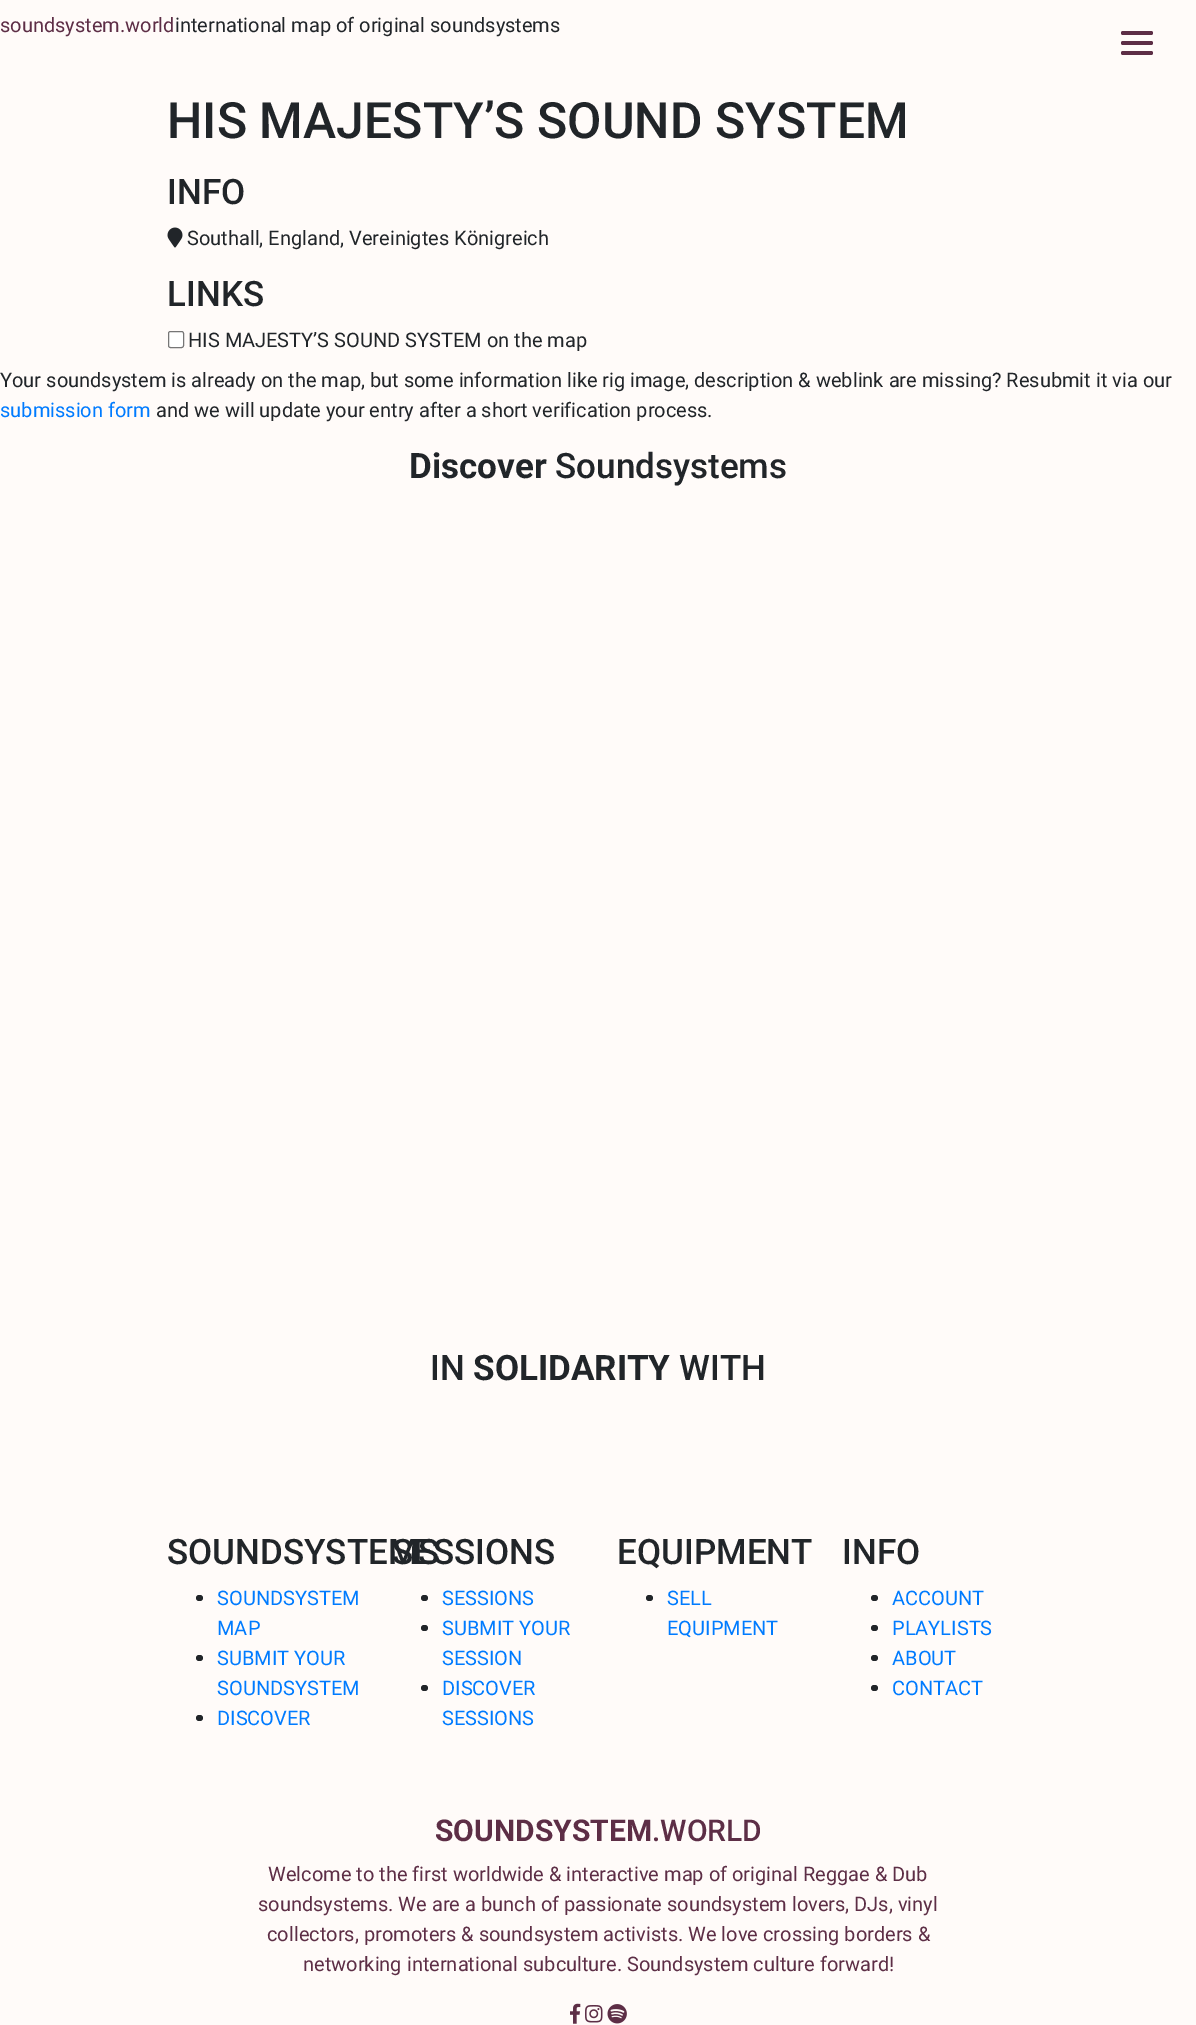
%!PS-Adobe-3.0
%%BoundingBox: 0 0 1196 2025
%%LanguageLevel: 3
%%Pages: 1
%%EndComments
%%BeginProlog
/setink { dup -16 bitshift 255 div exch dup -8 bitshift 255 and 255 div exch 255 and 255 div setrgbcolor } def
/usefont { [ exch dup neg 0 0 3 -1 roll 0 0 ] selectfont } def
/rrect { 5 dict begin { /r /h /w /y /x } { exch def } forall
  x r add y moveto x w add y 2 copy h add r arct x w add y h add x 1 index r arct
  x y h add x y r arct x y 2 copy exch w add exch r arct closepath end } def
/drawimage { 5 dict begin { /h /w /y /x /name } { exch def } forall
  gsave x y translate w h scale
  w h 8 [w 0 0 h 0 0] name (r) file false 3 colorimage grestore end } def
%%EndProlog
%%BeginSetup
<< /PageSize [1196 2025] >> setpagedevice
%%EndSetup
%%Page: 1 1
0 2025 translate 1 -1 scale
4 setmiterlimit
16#FFFBF9 setink
0 0 1196 2025 rectfill
/Roboto-Regular 20 usefont
16#5D2E46 setink
0 32 moveto (soundsystem.world) show
16#212529 setink
175 32 moveto (international map of original soundsystems) show
/Roboto-Medium 50 usefont
167 138 moveto (HIS MAJESTY’S SOUND SYSTEM) show
/Roboto-Medium 35 usefont
167 204 moveto (INFO) show
(img1.raw) 167 227 16 21 drawimage
/Roboto-Regular 20 usefont
187 245 moveto (Southall, England, Vereinigtes Königreich) show
/Roboto-Medium 35 usefont
167 306 moveto (LINKS) show
16#FFFFFF setink
168.5 331.5 15 16 2 rrect gsave fill grestore
16#767676 setink
stroke
/Roboto-Regular 20 usefont
16#212529 setink
188 347 moveto (HIS MAJESTY’S SOUND SYSTEM on the map) show
0 387 moveto (Your soundsystem is already on the map, but some information like rig image, description & weblink are missing? Resubmit it via our) show
16#007BFF setink
0 417 moveto (submission form) show
16#212529 setink
156 417 moveto (and we will update your entry after a short verification process.) show
16#5D2E46 setink
1121 51 32 4 2 rrect fill
1121 31 32 4 2 rrect fill
1121 41 32 4 2 rrect fill
/Roboto-Bold 35 usefont
16#212529 setink
409 478 moveto (Discover) show
/Roboto-Medium 35 usefont
555 478 moveto (Soundsystems) show
430 1380 moveto (IN) show
/Roboto-Bold 35 usefont
473 1380 moveto (SOLIDARITY) show
/Roboto-Medium 35 usefont
679 1380 moveto (WITH) show
167 1564 moveto (SOUNDSYSTEMS) show
196 1595 7 6 3 rrect fill
/Roboto-Regular 20 usefont
16#007BFF setink
217 1605 moveto (SOUNDSYSTEM) show
217 1635 moveto (MAP) show
16#212529 setink
196 1655 7 6 3 rrect fill
16#007BFF setink
217 1665 moveto (SUBMIT YOUR) show
217 1695 moveto (SOUNDSYSTEM) show
16#212529 setink
196 1715 7 6 3 rrect fill
16#007BFF setink
217 1725 moveto (DISCOVER) show
/Roboto-Medium 35 usefont
16#212529 setink
392 1564 moveto (SESSIONS) show
421 1595 7 6 3 rrect fill
/Roboto-Regular 20 usefont
16#007BFF setink
442 1605 moveto (SESSIONS) show
16#212529 setink
421 1625 7 6 3 rrect fill
16#007BFF setink
442 1635 moveto (SUBMIT YOUR) show
442 1665 moveto (SESSION) show
16#212529 setink
421 1685 7 6 3 rrect fill
16#007BFF setink
442 1695 moveto (DISCOVER) show
442 1725 moveto (SESSIONS) show
/Roboto-Medium 35 usefont
16#212529 setink
617 1564 moveto (EQUIPMENT) show
646 1595 7 6 3 rrect fill
/Roboto-Regular 20 usefont
16#007BFF setink
667 1605 moveto (SELL) show
667 1635 moveto (EQUIPMENT) show
/Roboto-Medium 35 usefont
16#212529 setink
842 1564 moveto (INFO) show
871 1595 7 6 3 rrect fill
/Roboto-Regular 20 usefont
16#007BFF setink
892 1605 moveto (ACCOUNT) show
16#212529 setink
871 1625 7 6 3 rrect fill
16#007BFF setink
892 1635 moveto (PLAYLISTS) show
16#212529 setink
871 1655 7 6 3 rrect fill
16#007BFF setink
892 1665 moveto (ABOUT) show
16#212529 setink
871 1685 7 6 3 rrect fill
16#007BFF setink
892 1695 moveto (CONTACT) show
/Roboto-Bold 30 usefont
16#5D2E46 setink
435 1841 moveto (SOUNDSYSTEM) show
/Roboto-Medium 30 usefont
652 1841 moveto (.WORLD) show
/Roboto-Regular 20 usefont
[
    [(Welcome to the first worldwide & interactive map of original Reggae & Dub) 268 1881]
    [(soundsystems. We are a bunch of passionate soundsystem lovers, DJs, vinyl) 258 1911]
    [(collectors, promoters & soundsystem activists. We love crossing borders &) 267 1941]
    [(networking international subculture. Soundsystem culture forward!) 303 1971]
] { aload pop moveto show } forall
(img2.raw) 570 2003 11 21 drawimage
(img3.raw) 585 2005 18 18 drawimage
(img4.raw) 607 2004 20 20 drawimage
showpage
%%EOF
